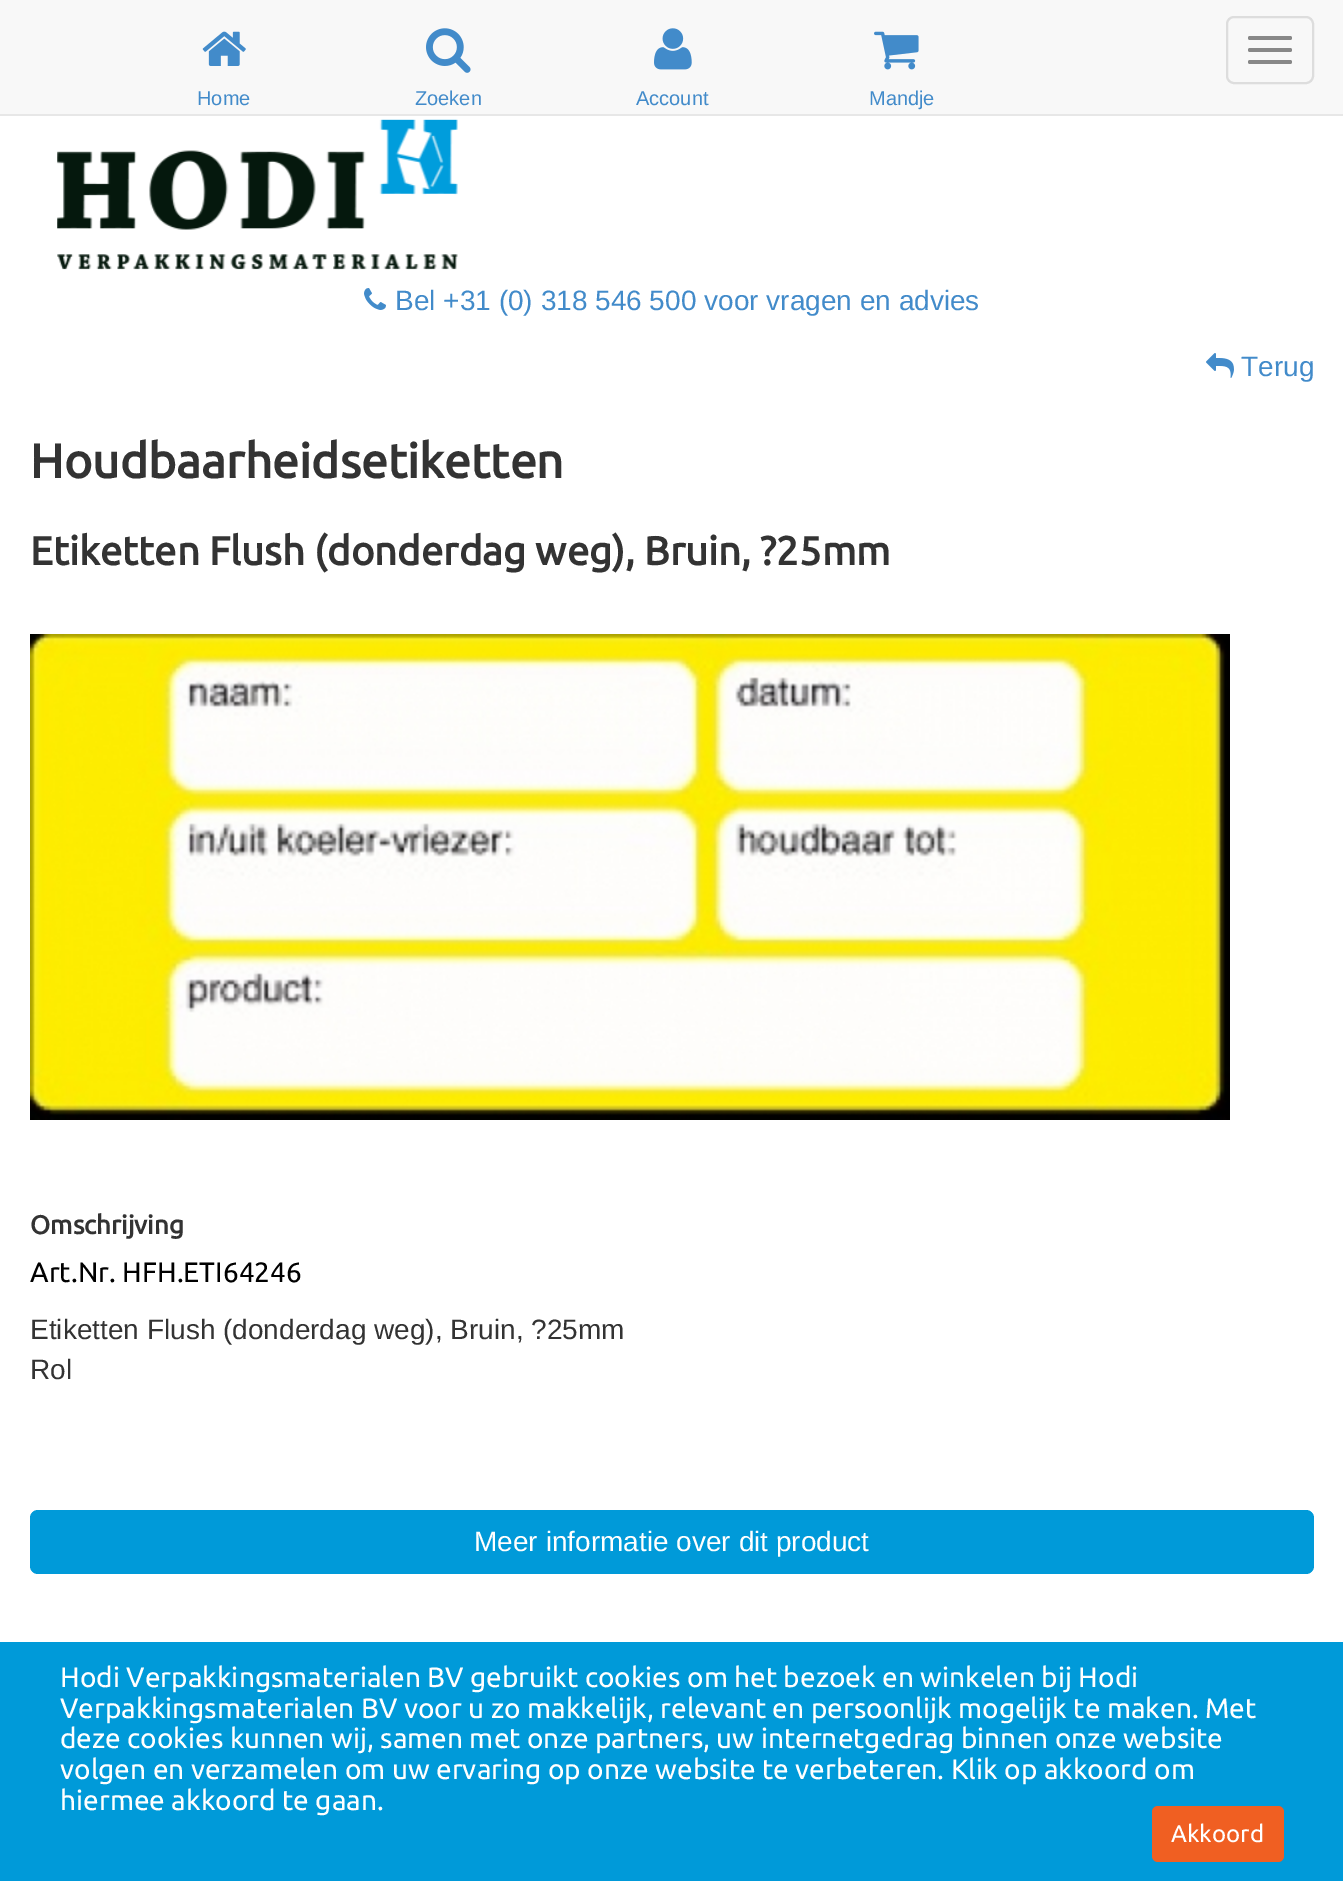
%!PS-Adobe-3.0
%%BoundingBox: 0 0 1343 1881
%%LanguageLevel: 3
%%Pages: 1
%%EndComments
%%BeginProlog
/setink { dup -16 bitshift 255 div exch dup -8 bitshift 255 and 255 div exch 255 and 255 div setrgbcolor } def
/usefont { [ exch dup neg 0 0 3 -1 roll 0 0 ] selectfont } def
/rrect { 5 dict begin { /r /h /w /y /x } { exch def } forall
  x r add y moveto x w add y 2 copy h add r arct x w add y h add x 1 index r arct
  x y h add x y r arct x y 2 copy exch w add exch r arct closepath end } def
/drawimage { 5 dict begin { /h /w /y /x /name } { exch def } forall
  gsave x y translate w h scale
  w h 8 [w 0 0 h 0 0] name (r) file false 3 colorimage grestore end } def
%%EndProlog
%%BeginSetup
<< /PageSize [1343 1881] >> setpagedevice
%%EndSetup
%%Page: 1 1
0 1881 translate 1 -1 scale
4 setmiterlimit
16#FFFFFF setink
0 0 1343 1881 rectfill
16#F8F8F8 setink
0 0 1343 114 rectfill
16#E7E7E7 setink
0 114 1343 2 rectfill
16#DDDDDD setink
2 setlinewidth
1227 17 86 66 7 rrect stroke
16#888888 setink
1248 36 44 4 2 rrect fill
1248 48 44 4 2 rrect fill
1248 60 44 4 2 rrect fill
(img1.raw) 202 31 44 35 drawimage
/LiberationSans-Regular 20 usefont
16#428BCA setink
197 105 moveto (Home) show
(img2.raw) 426 28 45 45 drawimage
415 105 moveto (Zoeken) show
(img3.raw) 654 28 38 42 drawimage
636 105 moveto (Account) show
(img4.raw) 874 31 45 39 drawimage
869 105 moveto (Mandje) show
(img5.raw) 57 119 401 151 drawimage
(img6.raw) 364 288 22 22 drawimage
/LiberationSans-Regular 28 usefont
395 310 moveto (Bel +31 \(0\) 318 546 500 voor vragen en advies) show
(img7.raw) 1206 353 28 25 drawimage
1241 376 moveto (Terug) show
/Ubuntu-Bold 48 usefont
16#333333 setink
30 478 moveto (Houdbaarheidsetiketten) show
/Ubuntu-Bold 40 usefont
30 565 moveto (Etiketten Flush \(donderdag weg\), Bruin, ?25mm) show
(img8.raw) 30 634 1200 486 drawimage
/Ubuntu-Bold 26 usefont
30 1234 moveto (Omschrijving) show
/Ubuntu-Regular 28 usefont
16#000000 setink
30 1282 moveto (Art.Nr. HFH.ETI64246) show
/LiberationSans-Regular 28 usefont
16#333333 setink
30 1339 moveto (Etiketten Flush \(donderdag weg\), Bruin, ?25mm) show
30 1379 moveto (Rol) show
16#009AD9 setink
30 1510 1284 64 8 rrect fill
16#FFFFFF setink
474 1551 moveto (Meer informatie over dit product) show
16#009AD9 setink
0 1642 1343 239 rectfill
/Ubuntu-Regular 28 usefont
16#FFFFFF setink
[
    [(Hodi Verpakkingsmaterialen BV gebruikt cookies om het bezoek en winkelen bij Hodi) 60 1687]
    [(Verpakkingsmaterialen BV voor u zo makkelijk, relevant en persoonlijk mogelijk te maken. Met) 60 1718]
    [(deze cookies kunnen wij, samen met onze partners, uw internetgedrag binnen onze website) 60 1748]
    [(volgen en verzamelen om uw ervaring op onze website te verbeteren. Klik op akkoord om) 60 1779]
    [(hiermee akkoord te gaan.) 60 1810]
] { aload pop moveto show } forall
16#F05F22 setink
1152 1806 132 56 6 rrect fill
/Ubuntu-Regular 24 usefont
16#FFFFFF setink
1171 1842 moveto (Akkoord) show
showpage
%%EOF
